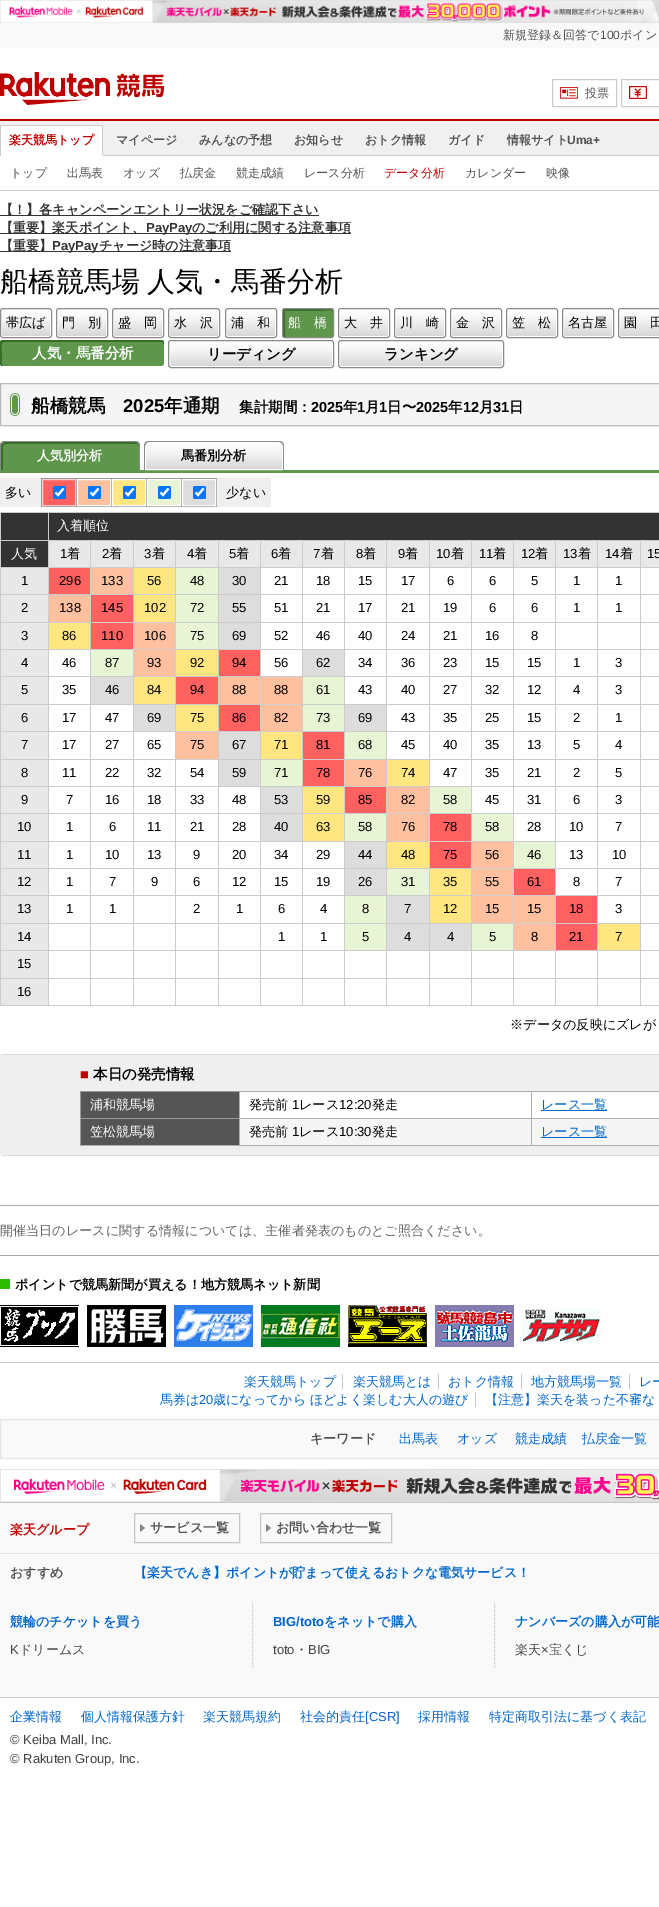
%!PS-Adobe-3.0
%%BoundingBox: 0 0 659 1907
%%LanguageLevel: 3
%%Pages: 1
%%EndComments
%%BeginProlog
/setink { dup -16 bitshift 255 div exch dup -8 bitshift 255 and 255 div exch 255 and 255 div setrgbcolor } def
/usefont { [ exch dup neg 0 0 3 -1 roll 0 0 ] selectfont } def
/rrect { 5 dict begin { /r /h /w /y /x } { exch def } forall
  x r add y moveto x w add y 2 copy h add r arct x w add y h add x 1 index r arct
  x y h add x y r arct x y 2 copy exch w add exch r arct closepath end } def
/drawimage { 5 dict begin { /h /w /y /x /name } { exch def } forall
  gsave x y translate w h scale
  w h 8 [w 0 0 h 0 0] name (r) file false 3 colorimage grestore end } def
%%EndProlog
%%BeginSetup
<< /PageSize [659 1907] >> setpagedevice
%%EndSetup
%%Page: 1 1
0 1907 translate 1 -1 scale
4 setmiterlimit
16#FFFFFF setink
0 0 659 1907 rectfill
(img1.raw) 0 0 659 23 drawimage
16#F9F9F9 setink
0 23 659 25 rectfill
/WenQuanYiZenHei-Medium 12 usefont
16#515151 setink
503 39 moveto (新規登録＆回答で) show
/LiberationSans-Regular 12 usefont
600 39 moveto (100) show
/WenQuanYiZenHei-Medium 12 usefont
620 39 moveto (ポイン) show
16#BF0000 setink
0 119 659 2 rectfill
(img2.raw) 0 72 164 33 drawimage
16#CCCCCC setink
552.5 79.5 64 27 rectstroke
(img3.raw) 560 87 18 12 drawimage
16#515151 setink
585 97 moveto (投票) show
16#CCCCCC setink
621.5 79.5 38 27 rectstroke
(img4.raw) 629 86 18 13 drawimage
[
    [0 121 659 34 16#F0F0F0]
    [103 155 556 1 16#CCCCCC]
    [1 126 101 29 16#FFFFFF]
    [0 125 103 1 16#CCCCCC]
    [102 125 1 31 16#CCCCCC]
    [102 155 1 1 16#FFFFFF]
    [0 125 1 31 16#CCCCCC]
] { aload pop setink rectfill } forall
/WenQuanYiZenHei-Bold 12 usefont
16#BF0000 setink
9 144 moveto (楽天競馬トップ) show
16#515151 setink
[
    [(マイページ) 116 144]
    [(みんなの予想) 199 144]
    [(お知らせ) 294 144]
    [(おトク情報) 365 144]
    [(ガイド) 448 144]
    [(情報サイト) 507 144]
] { aload pop moveto show } forall
/LiberationSans-Bold 12 usefont
567 144 moveto (Uma+) show
16#CCCCCC setink
0 190 659 1 rectfill
/WenQuanYiZenHei-Medium 12 usefont
16#515151 setink
[
    [(トップ) 10 177]
    [(出馬表) 67 177]
    [(オッズ) 123 177]
    [(払戻金) 180 177]
    [(競走成績) 236 177]
    [(レース分析) 304 177]
] { aload pop moveto show } forall
16#BF0000 setink
384 177 moveto (データ分析) show
16#515151 setink
465 177 moveto (カレンダー) show
546 177 moveto (映像) show
16#333333 setink
0 215 319 1 rectfill
/WenQuanYiZenHei-Bold 13.1 usefont
0 214 moveto (【！】各キャンペーンエントリー状況をご確認下さい) show
0 233 351 1 rectfill
0 232 moveto (【重要】楽天ポイント、) show
/LiberationSans-Bold 13.1 usefont
146 232 moveto (PayPay) show
/WenQuanYiZenHei-Bold 13.1 usefont
192 232 moveto (のご利用に関する注意事項) show
0 251 231 1 rectfill
0 250 moveto (【重要】) show
/LiberationSans-Bold 13.1 usefont
52 250 moveto (PayPay) show
/WenQuanYiZenHei-Bold 13.1 usefont
99 250 moveto (チャージ時の注意事項) show
/WenQuanYiZenHei-Medium 28 usefont
16#000000 setink
0 291 moveto -1 0 32 (船橋競馬場 人気・馬番分析) widthshow
gsave
0 308 52 30 3 rrect clip newpath
gsave 0 309 moveto 52 309 lineto 52 337 lineto 0 337 lineto closepath clip newpath
<< /ShadingType 2 /ColorSpace /DeviceRGB /Coords [26 309 26 337] /Extend [true true] /Function << /FunctionType 3 /Domain [0 1] /Functions [<< /FunctionType 2 /Domain [0 1] /C0 [1 1 1] /C1 [0.953 0.953 0.953] /N 1 >> << /FunctionType 2 /Domain [0 1] /C0 [0.953 0.953 0.953] /C1 [0.835 0.835 0.835] /N 1 >>] /Bounds [0.4] /Encode [0 1 0 1] >> >> shfill grestore
grestore
16#FFFFFF setink
1.5 309.5 49 27 1.5 rrect stroke
16#8A8A8A setink
0.5 308.5 51 29 2.5 rrect stroke
/WenQuanYiZenHei-Medium 13.1 usefont
16#000000 setink
6 327 moveto (帯広ば) show
gsave
56 308 52 30 3 rrect clip newpath
gsave 56 309 moveto 108 309 lineto 108 337 lineto 56 337 lineto closepath clip newpath
<< /ShadingType 2 /ColorSpace /DeviceRGB /Coords [82 309 82 337] /Extend [true true] /Function << /FunctionType 3 /Domain [0 1] /Functions [<< /FunctionType 2 /Domain [0 1] /C0 [1 1 1] /C1 [0.953 0.953 0.953] /N 1 >> << /FunctionType 2 /Domain [0 1] /C0 [0.953 0.953 0.953] /C1 [0.835 0.835 0.835] /N 1 >>] /Bounds [0.4] /Encode [0 1 0 1] >> >> shfill grestore
grestore
16#FFFFFF setink
57.5 309.5 49 27 1.5 rrect stroke
16#8A8A8A setink
56.5 308.5 51 29 2.5 rrect stroke
16#000000 setink
62 327 moveto (門　別) show
gsave
112 308 52 30 3 rrect clip newpath
gsave 112 309 moveto 164 309 lineto 164 337 lineto 112 337 lineto closepath clip newpath
<< /ShadingType 2 /ColorSpace /DeviceRGB /Coords [138 309 138 337] /Extend [true true] /Function << /FunctionType 3 /Domain [0 1] /Functions [<< /FunctionType 2 /Domain [0 1] /C0 [1 1 1] /C1 [0.953 0.953 0.953] /N 1 >> << /FunctionType 2 /Domain [0 1] /C0 [0.953 0.953 0.953] /C1 [0.835 0.835 0.835] /N 1 >>] /Bounds [0.4] /Encode [0 1 0 1] >> >> shfill grestore
grestore
16#FFFFFF setink
113.5 309.5 49 27 1.5 rrect stroke
16#8A8A8A setink
112.5 308.5 51 29 2.5 rrect stroke
16#000000 setink
118 327 moveto (盛　岡) show
gsave
168 308 52 30 3 rrect clip newpath
gsave 168 309 moveto 220 309 lineto 220 337 lineto 168 337 lineto closepath clip newpath
<< /ShadingType 2 /ColorSpace /DeviceRGB /Coords [194 309 194 337] /Extend [true true] /Function << /FunctionType 3 /Domain [0 1] /Functions [<< /FunctionType 2 /Domain [0 1] /C0 [1 1 1] /C1 [0.953 0.953 0.953] /N 1 >> << /FunctionType 2 /Domain [0 1] /C0 [0.953 0.953 0.953] /C1 [0.835 0.835 0.835] /N 1 >>] /Bounds [0.4] /Encode [0 1 0 1] >> >> shfill grestore
grestore
16#FFFFFF setink
169.5 309.5 49 27 1.5 rrect stroke
16#8A8A8A setink
168.5 308.5 51 29 2.5 rrect stroke
16#000000 setink
174 327 moveto (水　沢) show
gsave
225 308 52 30 3 rrect clip newpath
gsave 225 309 moveto 277 309 lineto 277 337 lineto 225 337 lineto closepath clip newpath
<< /ShadingType 2 /ColorSpace /DeviceRGB /Coords [251 309 251 337] /Extend [true true] /Function << /FunctionType 3 /Domain [0 1] /Functions [<< /FunctionType 2 /Domain [0 1] /C0 [1 1 1] /C1 [0.953 0.953 0.953] /N 1 >> << /FunctionType 2 /Domain [0 1] /C0 [0.953 0.953 0.953] /C1 [0.835 0.835 0.835] /N 1 >>] /Bounds [0.4] /Encode [0 1 0 1] >> >> shfill grestore
grestore
16#FFFFFF setink
226.5 309.5 49 27 1.5 rrect stroke
16#8A8A8A setink
225.5 308.5 51 29 2.5 rrect stroke
16#000000 setink
231 327 moveto (浦　和) show
16#5E964B setink
282 308 52 30 3 rrect fill
16#376D28 setink
286 311 moveto 317 311 lineto 327 311 331 309 332 311 curveto 333 311 333 312 333 315 curveto 333 311 lineto 333 310 332 309 331 309 curveto 285 309 lineto 284 309 283 310 283 311 curveto 283 335 lineto 283 336 284 337 285 337 curveto 286 337 lineto 284 336 285 321 285 319 curveto 285 318 285 312 285 311 curveto closepath 333 335 moveto 333 336 lineto closepath eofill
16#8A8A8A setink
282.5 308.5 51 29 2.5 rrect stroke
16#FFFFFF setink
288 327 moveto (船　橋) show
gsave
338 308 52 30 3 rrect clip newpath
gsave 338 309 moveto 390 309 lineto 390 337 lineto 338 337 lineto closepath clip newpath
<< /ShadingType 2 /ColorSpace /DeviceRGB /Coords [364 309 364 337] /Extend [true true] /Function << /FunctionType 3 /Domain [0 1] /Functions [<< /FunctionType 2 /Domain [0 1] /C0 [1 1 1] /C1 [0.953 0.953 0.953] /N 1 >> << /FunctionType 2 /Domain [0 1] /C0 [0.953 0.953 0.953] /C1 [0.835 0.835 0.835] /N 1 >>] /Bounds [0.4] /Encode [0 1 0 1] >> >> shfill grestore
grestore
339.5 309.5 49 27 1.5 rrect stroke
16#8A8A8A setink
338.5 308.5 51 29 2.5 rrect stroke
16#000000 setink
344 327 moveto (大　井) show
gsave
394 308 52 30 3 rrect clip newpath
gsave 394 309 moveto 446 309 lineto 446 337 lineto 394 337 lineto closepath clip newpath
<< /ShadingType 2 /ColorSpace /DeviceRGB /Coords [420 309 420 337] /Extend [true true] /Function << /FunctionType 3 /Domain [0 1] /Functions [<< /FunctionType 2 /Domain [0 1] /C0 [1 1 1] /C1 [0.953 0.953 0.953] /N 1 >> << /FunctionType 2 /Domain [0 1] /C0 [0.953 0.953 0.953] /C1 [0.835 0.835 0.835] /N 1 >>] /Bounds [0.4] /Encode [0 1 0 1] >> >> shfill grestore
grestore
16#FFFFFF setink
395.5 309.5 49 27 1.5 rrect stroke
16#8A8A8A setink
394.5 308.5 51 29 2.5 rrect stroke
16#000000 setink
400 327 moveto (川　崎) show
gsave
450 308 52 30 3 rrect clip newpath
gsave 450 309 moveto 502 309 lineto 502 337 lineto 450 337 lineto closepath clip newpath
<< /ShadingType 2 /ColorSpace /DeviceRGB /Coords [476 309 476 337] /Extend [true true] /Function << /FunctionType 3 /Domain [0 1] /Functions [<< /FunctionType 2 /Domain [0 1] /C0 [1 1 1] /C1 [0.953 0.953 0.953] /N 1 >> << /FunctionType 2 /Domain [0 1] /C0 [0.953 0.953 0.953] /C1 [0.835 0.835 0.835] /N 1 >>] /Bounds [0.4] /Encode [0 1 0 1] >> >> shfill grestore
grestore
16#FFFFFF setink
451.5 309.5 49 27 1.5 rrect stroke
16#8A8A8A setink
450.5 308.5 51 29 2.5 rrect stroke
16#000000 setink
456 327 moveto (金　沢) show
gsave
506 308 52 30 3 rrect clip newpath
gsave 506 309 moveto 558 309 lineto 558 337 lineto 506 337 lineto closepath clip newpath
<< /ShadingType 2 /ColorSpace /DeviceRGB /Coords [532 309 532 337] /Extend [true true] /Function << /FunctionType 3 /Domain [0 1] /Functions [<< /FunctionType 2 /Domain [0 1] /C0 [1 1 1] /C1 [0.953 0.953 0.953] /N 1 >> << /FunctionType 2 /Domain [0 1] /C0 [0.953 0.953 0.953] /C1 [0.835 0.835 0.835] /N 1 >>] /Bounds [0.4] /Encode [0 1 0 1] >> >> shfill grestore
grestore
16#FFFFFF setink
507.5 309.5 49 27 1.5 rrect stroke
16#8A8A8A setink
506.5 308.5 51 29 2.5 rrect stroke
16#000000 setink
512 327 moveto (笠　松) show
gsave
562 308 52 30 3 rrect clip newpath
gsave 562 309 moveto 614 309 lineto 614 337 lineto 562 337 lineto closepath clip newpath
<< /ShadingType 2 /ColorSpace /DeviceRGB /Coords [588 309 588 337] /Extend [true true] /Function << /FunctionType 3 /Domain [0 1] /Functions [<< /FunctionType 2 /Domain [0 1] /C0 [1 1 1] /C1 [0.953 0.953 0.953] /N 1 >> << /FunctionType 2 /Domain [0 1] /C0 [0.953 0.953 0.953] /C1 [0.835 0.835 0.835] /N 1 >>] /Bounds [0.4] /Encode [0 1 0 1] >> >> shfill grestore
grestore
16#FFFFFF setink
563.5 309.5 49 27 1.5 rrect stroke
16#8A8A8A setink
562.5 308.5 51 29 2.5 rrect stroke
16#000000 setink
568 327 moveto (名古屋) show
gsave
618 308 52 30 3 rrect clip newpath
gsave 618 309 moveto 659 309 lineto 659 337 lineto 618 337 lineto closepath clip newpath
<< /ShadingType 2 /ColorSpace /DeviceRGB /Coords [644 309 644 337] /Extend [true true] /Function << /FunctionType 3 /Domain [0 1] /Functions [<< /FunctionType 2 /Domain [0 1] /C0 [1 1 1] /C1 [0.953 0.953 0.953] /N 1 >> << /FunctionType 2 /Domain [0 1] /C0 [0.953 0.953 0.953] /C1 [0.835 0.835 0.835] /N 1 >>] /Bounds [0.4] /Encode [0 1 0 1] >> >> shfill grestore
grestore
16#FFFFFF setink
619.5 309.5 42 27 1.5 rrect stroke
16#8A8A8A setink
618.5 308.5 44 29 2.5 rrect stroke
16#000000 setink
624 327 moveto (園　田) show
16#5E964B setink
0 340 164 26 3 rrect fill
16#376D28 setink
4 342 moveto 162 342 lineto 163 342 164 343 164 344 curveto 164 343 lineto 164 341 163 340 161 340 curveto 3 340 lineto 1 340 0 341 0 343 curveto 0 363 lineto 0 365 1 366 3 366 curveto 4 366 lineto 0 366 2 356 2 354 curveto 2 352 0 342 4 342 curveto closepath fill
/WenQuanYiZenHei-Bold 14.5 usefont
16#FFFFFF setink
32 358 moveto (人気・馬番分析) show
gsave
168 340 166 28 3 rrect clip newpath
gsave 168 341 moveto 334 341 lineto 334 367 lineto 168 367 lineto closepath clip newpath
<< /ShadingType 2 /ColorSpace /DeviceRGB /Coords [251 341 251 367] /Extend [true true] /Function << /FunctionType 3 /Domain [0 1] /Functions [<< /FunctionType 2 /Domain [0 1] /C0 [1 1 1] /C1 [0.953 0.953 0.953] /N 1 >> << /FunctionType 2 /Domain [0 1] /C0 [0.953 0.953 0.953] /C1 [0.835 0.835 0.835] /N 1 >>] /Bounds [0.4] /Encode [0 1 0 1] >> >> shfill grestore
grestore
169.5 341.5 163 25 1.5 rrect stroke
16#8A8A8A setink
168.5 340.5 165 27 2.5 rrect stroke
16#000000 setink
207 359 moveto (リーディング) show
gsave
338 340 166 28 3 rrect clip newpath
gsave 338 341 moveto 504 341 lineto 504 367 lineto 338 367 lineto closepath clip newpath
<< /ShadingType 2 /ColorSpace /DeviceRGB /Coords [421 341 421 367] /Extend [true true] /Function << /FunctionType 3 /Domain [0 1] /Functions [<< /FunctionType 2 /Domain [0 1] /C0 [1 1 1] /C1 [0.953 0.953 0.953] /N 1 >> << /FunctionType 2 /Domain [0 1] /C0 [0.953 0.953 0.953] /C1 [0.835 0.835 0.835] /N 1 >>] /Bounds [0.4] /Encode [0 1 0 1] >> >> shfill grestore
grestore
16#FFFFFF setink
339.5 341.5 163 25 1.5 rrect stroke
16#8A8A8A setink
338.5 340.5 165 27 2.5 rrect stroke
16#000000 setink
384 359 moveto (ランキング) show
16#F5F5F5 setink
1 384 658 41 rectfill
(img5.raw) 10 393 10 23 drawimage
16#BABABA setink
0.5 383.5 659 42 rectstroke
/WenQuanYiZenHei-Bold 18.5 usefont
16#000000 setink
31 412 moveto (船橋競馬) show
/LiberationSans-Bold 18.5 usefont
123 412 moveto (2025) show
/WenQuanYiZenHei-Bold 18.5 usefont
164 412 moveto (年通期) show
/WenQuanYiZenHei-Bold 14.5 usefont
239 412 moveto (集計期間：) show
/LiberationSans-Bold 14.5 usefont
311 412 moveto (2025) show
/WenQuanYiZenHei-Bold 14.5 usefont
343 412 moveto (年) show
/LiberationSans-Bold 14.5 usefont
357 412 moveto (1) show
/WenQuanYiZenHei-Bold 14.5 usefont
365 412 moveto (月) show
/LiberationSans-Bold 14.5 usefont
379 412 moveto (1) show
/WenQuanYiZenHei-Bold 14.5 usefont
387 412 moveto (日〜) show
/LiberationSans-Bold 14.5 usefont
416 412 moveto (2025) show
/WenQuanYiZenHei-Bold 14.5 usefont
448 412 moveto (年) show
/LiberationSans-Bold 14.5 usefont
463 412 moveto (12) show
/WenQuanYiZenHei-Bold 14.5 usefont
479 412 moveto (月) show
/LiberationSans-Bold 14.5 usefont
493 412 moveto (31) show
/WenQuanYiZenHei-Bold 14.5 usefont
509 412 moveto (日) show
16#5E964B setink
0 470 659 3 rectfill
5 441 moveto 135 441 lineto 138 441 140 443 140 446 curveto 140 470 lineto 0 470 lineto 0 446 lineto 0 443 2 441 5 441 curveto closepath fill
16#376D28 setink
6 444 moveto 136 444 lineto 138 444 139 445 139 447 curveto 139 446 lineto 139 444 137 442 135 442 curveto 5 442 lineto 3 442 1 444 1 446 curveto 1 470 lineto 3 470 lineto 3 447 lineto 3 445 4 444 6 444 curveto closepath fill
16#8A8A8A setink
5 441 moveto 135 441 lineto 138 441 140 443 140 446 curveto 140 470 lineto 0 470 lineto 0 446 lineto 0 443 2 441 5 441 curveto closepath 5 442 moveto 135 442 lineto 137 442 139 444 139 446 curveto 139 470 lineto 1 470 lineto 1 446 lineto 1 444 3 442 5 442 curveto closepath eofill
/WenQuanYiZenHei-Bold 13.1 usefont
16#FFFFFF setink
37 460 moveto (人気別分析) show
gsave
149 441 moveto 279 441 lineto 282 441 284 443 284 446 curveto 284 470 lineto 144 470 lineto 144 446 lineto 144 443 146 441 149 441 curveto closepath clip newpath
gsave 144 442 moveto 284 442 lineto 284 469 lineto 144 469 lineto closepath clip newpath
<< /ShadingType 2 /ColorSpace /DeviceRGB /Coords [214 442 214 470] /Extend [true true] /Function << /FunctionType 3 /Domain [0 1] /Functions [<< /FunctionType 2 /Domain [0 1] /C0 [1 1 1] /C1 [0.953 0.953 0.953] /N 1 >> << /FunctionType 2 /Domain [0 1] /C0 [0.953 0.953 0.953] /C1 [0.835 0.835 0.835] /N 1 >>] /Bounds [0.4] /Encode [0 1 0 1] >> >> shfill grestore
grestore
149 442.5 moveto 279 442.5 lineto 281 442.5 282.5 444 282.5 446 curveto 282.5 469.5 lineto 145.5 469.5 lineto 145.5 446 lineto 145.5 444 147 442.5 149 442.5 curveto closepath stroke
16#8A8A8A setink
149 441 moveto 279 441 lineto 282 441 284 443 284 446 curveto 284 470 lineto 144 470 lineto 144 446 lineto 144 443 146 441 149 441 curveto closepath 149 442 moveto 279 442 lineto 281 442 283 444 283 446 curveto 283 470 lineto 145 470 lineto 145 446 lineto 145 444 147 442 149 442 curveto closepath eofill
16#000000 setink
181 460 moveto (馬番別分析) show
16#EFEFEF setink
0 478 271 29 rectfill
/WenQuanYiZenHei-Medium 13.1 usefont
16#000000 setink
5 497 moveto (多い) show
[
    [41 478 176 1 16#999999]
    [41 478 1 29 16#999999]
    [76 479 1 28 16#999999]
    [42 506 35 1 16#999999]
] { aload pop setink rectfill } forall
16#FF6060 setink
42.5 479.5 moveto 75.5 479.5 lineto 75.5 505.5 lineto 42.5 505.5 lineto closepath gsave fill grestore
16#FFCCCC setink
stroke
16#0075FF setink
53 486 13 13 2 rrect fill
16#FFFFFF setink
2.1 setlinewidth
55.5 492.5 moveto 58 495 lineto 63.5 488.5 lineto stroke
16#999999 setink
111 479 1 28 rectfill
77 506 35 1 rectfill
16#FFC09F setink
77.5 479.5 moveto 110.5 479.5 lineto 110.5 505.5 lineto 77.5 505.5 lineto closepath gsave fill grestore
16#FFFFFF setink
1 setlinewidth
stroke
16#0075FF setink
88 486 13 13 2 rrect fill
16#FFFFFF setink
2.1 setlinewidth
90.5 492.5 moveto 93 495 lineto 98.5 488.5 lineto stroke
16#999999 setink
146 479 1 28 rectfill
112 506 35 1 rectfill
16#FFE680 setink
112.5 479.5 moveto 145.5 479.5 lineto 145.5 505.5 lineto 112.5 505.5 lineto closepath gsave fill grestore
16#FFFFFF setink
1 setlinewidth
stroke
16#0075FF setink
123 486 13 13 2 rrect fill
16#FFFFFF setink
2.1 setlinewidth
125.5 492.5 moveto 128 495 lineto 133.5 488.5 lineto stroke
16#999999 setink
181 479 1 28 rectfill
147 506 35 1 rectfill
16#E7F5D4 setink
147.5 479.5 moveto 180.5 479.5 lineto 180.5 505.5 lineto 147.5 505.5 lineto closepath gsave fill grestore
16#FFFFFF setink
1 setlinewidth
stroke
16#0075FF setink
158 486 13 13 2 rrect fill
16#FFFFFF setink
2.1 setlinewidth
160.5 492.5 moveto 163 495 lineto 168.5 488.5 lineto stroke
16#999999 setink
216 479 1 28 rectfill
182 506 35 1 rectfill
16#DDDDDD setink
182.5 479.5 moveto 215.5 479.5 lineto 215.5 505.5 lineto 182.5 505.5 lineto closepath gsave fill grestore
16#FFFFFF setink
1 setlinewidth
stroke
16#0075FF setink
193 486 13 13 2 rrect fill
16#FFFFFF setink
2.1 setlinewidth
195.5 492.5 moveto 198 495 lineto 203.5 488.5 lineto stroke
16#000000 setink
226 497 moveto (少ない) show
[
    [0 1005 659 1 16#CCCCCC]
    [1 513 47 27 16#333333]
    [0 512 659 1 16#CCCCCC]
    [0 512 1 28 16#CCCCCC]
    [49 513 610 27 16#333333]
    [48 512 1 28 16#CCCCCC]
] { aload pop setink rectfill } forall
16#FFFFFF setink
57 530 moveto (入着順位) show
[
    [1 541 47 26 16#333333]
    [0 540 659 1 16#CCCCCC]
    [0 540 1 27 16#CCCCCC]
] { aload pop setink rectfill } forall
16#FFFFFF setink
11 558 moveto (人気) show
16#E8E8E8 setink
49 541 41 26 rectfill
16#CCCCCC setink
48 540 1 27 rectfill
/LiberationSans-Regular 13.1 usefont
16#000000 setink
60 558 moveto (1) show
/WenQuanYiZenHei-Medium 13.1 usefont
67 558 moveto (着) show
16#E8E8E8 setink
91 541 42 26 rectfill
16#CCCCCC setink
90 540 1 27 rectfill
/LiberationSans-Regular 13.1 usefont
16#000000 setink
102 558 moveto (2) show
/WenQuanYiZenHei-Medium 13.1 usefont
109 558 moveto (着) show
16#E8E8E8 setink
134 541 41 26 rectfill
16#CCCCCC setink
133 540 1 27 rectfill
/LiberationSans-Regular 13.1 usefont
16#000000 setink
144 558 moveto (3) show
/WenQuanYiZenHei-Medium 13.1 usefont
152 558 moveto (着) show
16#E8E8E8 setink
176 541 42 26 rectfill
16#CCCCCC setink
175 540 1 27 rectfill
/LiberationSans-Regular 13.1 usefont
16#000000 setink
187 558 moveto (4) show
/WenQuanYiZenHei-Medium 13.1 usefont
194 558 moveto (着) show
16#E8E8E8 setink
219 541 41 26 rectfill
16#CCCCCC setink
218 540 1 27 rectfill
/LiberationSans-Regular 13.1 usefont
16#000000 setink
229 558 moveto (5) show
/WenQuanYiZenHei-Medium 13.1 usefont
236 558 moveto (着) show
16#E8E8E8 setink
261 541 41 26 rectfill
16#CCCCCC setink
260 540 1 27 rectfill
/LiberationSans-Regular 13.1 usefont
16#000000 setink
271 558 moveto (6) show
/WenQuanYiZenHei-Medium 13.1 usefont
278 558 moveto (着) show
16#E8E8E8 setink
303 541 41 26 rectfill
16#CCCCCC setink
302 540 1 27 rectfill
/LiberationSans-Regular 13.1 usefont
16#000000 setink
313 558 moveto (7) show
/WenQuanYiZenHei-Medium 13.1 usefont
321 558 moveto (着) show
16#E8E8E8 setink
345 541 41 26 rectfill
16#CCCCCC setink
344 540 1 27 rectfill
/LiberationSans-Regular 13.1 usefont
16#000000 setink
356 558 moveto (8) show
/WenQuanYiZenHei-Medium 13.1 usefont
363 558 moveto (着) show
16#E8E8E8 setink
387 541 42 26 rectfill
16#CCCCCC setink
386 540 1 27 rectfill
/LiberationSans-Regular 13.1 usefont
16#000000 setink
398 558 moveto (9) show
/WenQuanYiZenHei-Medium 13.1 usefont
405 558 moveto (着) show
16#E8E8E8 setink
430 541 41 26 rectfill
16#CCCCCC setink
429 540 1 27 rectfill
/LiberationSans-Regular 13.1 usefont
16#000000 setink
436 558 moveto (10) show
/WenQuanYiZenHei-Medium 13.1 usefont
451 558 moveto (着) show
16#E8E8E8 setink
472 541 41 26 rectfill
16#CCCCCC setink
471 540 1 27 rectfill
/LiberationSans-Regular 13.1 usefont
16#000000 setink
479 558 moveto (11) show
/WenQuanYiZenHei-Medium 13.1 usefont
493 558 moveto (着) show
16#E8E8E8 setink
514 541 41 26 rectfill
16#CCCCCC setink
513 540 1 27 rectfill
/LiberationSans-Regular 13.1 usefont
16#000000 setink
521 558 moveto (12) show
/WenQuanYiZenHei-Medium 13.1 usefont
535 558 moveto (着) show
16#E8E8E8 setink
556 541 41 26 rectfill
16#CCCCCC setink
555 540 1 27 rectfill
/LiberationSans-Regular 13.1 usefont
16#000000 setink
563 558 moveto (13) show
/WenQuanYiZenHei-Medium 13.1 usefont
578 558 moveto (着) show
16#E8E8E8 setink
598 541 42 26 rectfill
16#CCCCCC setink
597 540 1 27 rectfill
/LiberationSans-Regular 13.1 usefont
16#000000 setink
605 558 moveto (14) show
/WenQuanYiZenHei-Medium 13.1 usefont
620 558 moveto (着) show
16#E8E8E8 setink
641 541 18 26 rectfill
16#CCCCCC setink
640 540 1 27 rectfill
/LiberationSans-Regular 13.1 usefont
16#000000 setink
647 558 moveto (15) show
[
    [1 568 47 26 16#E8E8E8]
    [0 567 659 1 16#CCCCCC]
    [0 567 1 27 16#CCCCCC]
] { aload pop setink rectfill } forall
16#000000 setink
21 585 moveto (1) show
16#FF6060 setink
49 568 41 26 rectfill
16#CCCCCC setink
48 567 1 27 rectfill
16#000000 setink
59 585 moveto (296) show
16#FFC09F setink
91 568 42 26 rectfill
16#CCCCCC setink
90 567 1 27 rectfill
16#000000 setink
101 585 moveto (133) show
16#FFE680 setink
134 568 41 26 rectfill
16#CCCCCC setink
133 567 1 27 rectfill
16#000000 setink
147 585 moveto (56) show
16#E7F5D4 setink
176 568 42 26 rectfill
16#CCCCCC setink
175 567 1 27 rectfill
16#000000 setink
190 585 moveto (48) show
16#DDDDDD setink
219 568 41 26 rectfill
16#CCCCCC setink
218 567 1 27 rectfill
16#000000 setink
232 585 moveto (30) show
16#CCCCCC setink
260 567 1 27 rectfill
16#000000 setink
274 585 moveto (21) show
16#CCCCCC setink
302 567 1 27 rectfill
16#000000 setink
316 585 moveto (18) show
16#CCCCCC setink
344 567 1 27 rectfill
16#000000 setink
358 585 moveto (15) show
16#CCCCCC setink
386 567 1 27 rectfill
16#000000 setink
401 585 moveto (17) show
16#CCCCCC setink
429 567 1 27 rectfill
16#000000 setink
447 585 moveto (6) show
16#CCCCCC setink
471 567 1 27 rectfill
16#000000 setink
489 585 moveto (6) show
16#CCCCCC setink
513 567 1 27 rectfill
16#000000 setink
531 585 moveto (5) show
16#CCCCCC setink
555 567 1 27 rectfill
16#000000 setink
573 585 moveto (1) show
16#CCCCCC setink
597 567 1 27 rectfill
16#000000 setink
615 585 moveto (1) show
[
    [640 567 1 27 16#CCCCCC]
    [1 595 47 27 16#E8E8E8]
    [0 594 659 1 16#CCCCCC]
    [0 594 1 28 16#CCCCCC]
] { aload pop setink rectfill } forall
16#000000 setink
21 612 moveto (2) show
16#FFC09F setink
49 595 41 27 rectfill
16#CCCCCC setink
48 594 1 28 rectfill
16#000000 setink
59 612 moveto (138) show
16#FF6060 setink
91 595 42 27 rectfill
16#CCCCCC setink
90 594 1 28 rectfill
16#000000 setink
101 612 moveto (145) show
16#FFE680 setink
134 595 41 27 rectfill
16#CCCCCC setink
133 594 1 28 rectfill
16#000000 setink
144 612 moveto (102) show
16#E7F5D4 setink
176 595 42 27 rectfill
16#CCCCCC setink
175 594 1 28 rectfill
16#000000 setink
190 612 moveto (72) show
16#DDDDDD setink
219 595 41 27 rectfill
16#CCCCCC setink
218 594 1 28 rectfill
16#000000 setink
232 612 moveto (55) show
16#CCCCCC setink
260 594 1 28 rectfill
16#000000 setink
274 612 moveto (51) show
16#CCCCCC setink
302 594 1 28 rectfill
16#000000 setink
316 612 moveto (21) show
16#CCCCCC setink
344 594 1 28 rectfill
16#000000 setink
358 612 moveto (17) show
16#CCCCCC setink
386 594 1 28 rectfill
16#000000 setink
401 612 moveto (21) show
16#CCCCCC setink
429 594 1 28 rectfill
16#000000 setink
443 612 moveto (19) show
16#CCCCCC setink
471 594 1 28 rectfill
16#000000 setink
489 612 moveto (6) show
16#CCCCCC setink
513 594 1 28 rectfill
16#000000 setink
531 612 moveto (6) show
16#CCCCCC setink
555 594 1 28 rectfill
16#000000 setink
573 612 moveto (1) show
16#CCCCCC setink
597 594 1 28 rectfill
16#000000 setink
615 612 moveto (1) show
[
    [640 594 1 28 16#CCCCCC]
    [1 623 47 26 16#E8E8E8]
    [0 622 659 1 16#CCCCCC]
    [0 622 1 27 16#CCCCCC]
] { aload pop setink rectfill } forall
16#000000 setink
21 640 moveto (3) show
16#FFE680 setink
49 623 41 26 rectfill
16#CCCCCC setink
48 622 1 27 rectfill
16#000000 setink
62 640 moveto (86) show
16#FF6060 setink
91 623 42 26 rectfill
16#CCCCCC setink
90 622 1 27 rectfill
16#000000 setink
101 640 moveto (110) show
16#FFC09F setink
134 623 41 26 rectfill
16#CCCCCC setink
133 622 1 27 rectfill
16#000000 setink
144 640 moveto (106) show
16#E7F5D4 setink
176 623 42 26 rectfill
16#CCCCCC setink
175 622 1 27 rectfill
16#000000 setink
190 640 moveto (75) show
16#DDDDDD setink
219 623 41 26 rectfill
16#CCCCCC setink
218 622 1 27 rectfill
16#000000 setink
232 640 moveto (69) show
16#CCCCCC setink
260 622 1 27 rectfill
16#000000 setink
274 640 moveto (52) show
16#CCCCCC setink
302 622 1 27 rectfill
16#000000 setink
316 640 moveto (46) show
16#CCCCCC setink
344 622 1 27 rectfill
16#000000 setink
358 640 moveto (40) show
16#CCCCCC setink
386 622 1 27 rectfill
16#000000 setink
401 640 moveto (24) show
16#CCCCCC setink
429 622 1 27 rectfill
16#000000 setink
443 640 moveto (21) show
16#CCCCCC setink
471 622 1 27 rectfill
16#000000 setink
485 640 moveto (16) show
16#CCCCCC setink
513 622 1 27 rectfill
16#000000 setink
531 640 moveto (8) show
[
    [555 622 1 27 16#CCCCCC]
    [597 622 1 27 16#CCCCCC]
    [640 622 1 27 16#CCCCCC]
    [1 650 47 26 16#E8E8E8]
    [0 649 659 1 16#CCCCCC]
    [0 649 1 27 16#CCCCCC]
] { aload pop setink rectfill } forall
16#000000 setink
21 667 moveto (4) show
16#CCCCCC setink
48 649 1 27 rectfill
16#000000 setink
62 667 moveto (46) show
16#E7F5D4 setink
91 650 42 26 rectfill
16#CCCCCC setink
90 649 1 27 rectfill
16#000000 setink
105 667 moveto (87) show
16#FFC09F setink
134 650 41 26 rectfill
16#CCCCCC setink
133 649 1 27 rectfill
16#000000 setink
147 667 moveto (93) show
16#FFE680 setink
176 650 42 26 rectfill
16#CCCCCC setink
175 649 1 27 rectfill
16#000000 setink
190 667 moveto (92) show
16#FF6060 setink
219 650 41 26 rectfill
16#CCCCCC setink
218 649 1 27 rectfill
16#000000 setink
232 667 moveto (94) show
16#CCCCCC setink
260 649 1 27 rectfill
16#000000 setink
274 667 moveto (56) show
16#DDDDDD setink
303 650 41 26 rectfill
16#CCCCCC setink
302 649 1 27 rectfill
16#000000 setink
316 667 moveto (62) show
16#CCCCCC setink
344 649 1 27 rectfill
16#000000 setink
358 667 moveto (34) show
16#CCCCCC setink
386 649 1 27 rectfill
16#000000 setink
401 667 moveto (36) show
16#CCCCCC setink
429 649 1 27 rectfill
16#000000 setink
443 667 moveto (23) show
16#CCCCCC setink
471 649 1 27 rectfill
16#000000 setink
485 667 moveto (15) show
16#CCCCCC setink
513 649 1 27 rectfill
16#000000 setink
527 667 moveto (15) show
16#CCCCCC setink
555 649 1 27 rectfill
16#000000 setink
573 667 moveto (1) show
16#CCCCCC setink
597 649 1 27 rectfill
16#000000 setink
615 667 moveto (3) show
[
    [640 649 1 27 16#CCCCCC]
    [1 677 47 27 16#E8E8E8]
    [0 676 659 1 16#CCCCCC]
    [0 676 1 28 16#CCCCCC]
] { aload pop setink rectfill } forall
16#000000 setink
21 694 moveto (5) show
16#CCCCCC setink
48 676 1 28 rectfill
16#000000 setink
62 694 moveto (35) show
16#DDDDDD setink
91 677 42 27 rectfill
16#CCCCCC setink
90 676 1 28 rectfill
16#000000 setink
105 694 moveto (46) show
16#FFE680 setink
134 677 41 27 rectfill
16#CCCCCC setink
133 676 1 28 rectfill
16#000000 setink
147 694 moveto (84) show
16#FF6060 setink
176 677 42 27 rectfill
16#CCCCCC setink
175 676 1 28 rectfill
16#000000 setink
190 694 moveto (94) show
16#FFC09F setink
219 677 41 27 rectfill
16#CCCCCC setink
218 676 1 28 rectfill
16#000000 setink
232 694 moveto (88) show
16#FFC09F setink
261 677 41 27 rectfill
16#CCCCCC setink
260 676 1 28 rectfill
16#000000 setink
274 694 moveto (88) show
16#E7F5D4 setink
303 677 41 27 rectfill
16#CCCCCC setink
302 676 1 28 rectfill
16#000000 setink
316 694 moveto (61) show
16#CCCCCC setink
344 676 1 28 rectfill
16#000000 setink
358 694 moveto (43) show
16#CCCCCC setink
386 676 1 28 rectfill
16#000000 setink
401 694 moveto (40) show
16#CCCCCC setink
429 676 1 28 rectfill
16#000000 setink
443 694 moveto (27) show
16#CCCCCC setink
471 676 1 28 rectfill
16#000000 setink
485 694 moveto (32) show
16#CCCCCC setink
513 676 1 28 rectfill
16#000000 setink
527 694 moveto (12) show
16#CCCCCC setink
555 676 1 28 rectfill
16#000000 setink
573 694 moveto (4) show
16#CCCCCC setink
597 676 1 28 rectfill
16#000000 setink
615 694 moveto (3) show
[
    [640 676 1 28 16#CCCCCC]
    [1 705 47 26 16#E8E8E8]
    [0 704 659 1 16#CCCCCC]
    [0 704 1 27 16#CCCCCC]
] { aload pop setink rectfill } forall
16#000000 setink
21 722 moveto (6) show
16#CCCCCC setink
48 704 1 27 rectfill
16#000000 setink
62 722 moveto (17) show
16#CCCCCC setink
90 704 1 27 rectfill
16#000000 setink
105 722 moveto (47) show
16#DDDDDD setink
134 705 41 26 rectfill
16#CCCCCC setink
133 704 1 27 rectfill
16#000000 setink
147 722 moveto (69) show
16#FFE680 setink
176 705 42 26 rectfill
16#CCCCCC setink
175 704 1 27 rectfill
16#000000 setink
190 722 moveto (75) show
16#FF6060 setink
219 705 41 26 rectfill
16#CCCCCC setink
218 704 1 27 rectfill
16#000000 setink
232 722 moveto (86) show
16#FFC09F setink
261 705 41 26 rectfill
16#CCCCCC setink
260 704 1 27 rectfill
16#000000 setink
274 722 moveto (82) show
16#E7F5D4 setink
303 705 41 26 rectfill
16#CCCCCC setink
302 704 1 27 rectfill
16#000000 setink
316 722 moveto (73) show
16#DDDDDD setink
345 705 41 26 rectfill
16#CCCCCC setink
344 704 1 27 rectfill
16#000000 setink
358 722 moveto (69) show
16#CCCCCC setink
386 704 1 27 rectfill
16#000000 setink
401 722 moveto (43) show
16#CCCCCC setink
429 704 1 27 rectfill
16#000000 setink
443 722 moveto (35) show
16#CCCCCC setink
471 704 1 27 rectfill
16#000000 setink
485 722 moveto (25) show
16#CCCCCC setink
513 704 1 27 rectfill
16#000000 setink
527 722 moveto (15) show
16#CCCCCC setink
555 704 1 27 rectfill
16#000000 setink
573 722 moveto (2) show
16#CCCCCC setink
597 704 1 27 rectfill
16#000000 setink
615 722 moveto (1) show
[
    [640 704 1 27 16#CCCCCC]
    [1 732 47 27 16#E8E8E8]
    [0 731 659 1 16#CCCCCC]
    [0 731 1 28 16#CCCCCC]
] { aload pop setink rectfill } forall
16#000000 setink
21 749 moveto (7) show
16#CCCCCC setink
48 731 1 28 rectfill
16#000000 setink
62 749 moveto (17) show
16#CCCCCC setink
90 731 1 28 rectfill
16#000000 setink
105 749 moveto (27) show
16#CCCCCC setink
133 731 1 28 rectfill
16#000000 setink
147 749 moveto (65) show
16#FFC09F setink
176 732 42 27 rectfill
16#CCCCCC setink
175 731 1 28 rectfill
16#000000 setink
190 749 moveto (75) show
16#DDDDDD setink
219 732 41 27 rectfill
16#CCCCCC setink
218 731 1 28 rectfill
16#000000 setink
232 749 moveto (67) show
16#FFE680 setink
261 732 41 27 rectfill
16#CCCCCC setink
260 731 1 28 rectfill
16#000000 setink
274 749 moveto (71) show
16#FF6060 setink
303 732 41 27 rectfill
16#CCCCCC setink
302 731 1 28 rectfill
16#000000 setink
316 749 moveto (81) show
16#E7F5D4 setink
345 732 41 27 rectfill
16#CCCCCC setink
344 731 1 28 rectfill
16#000000 setink
358 749 moveto (68) show
16#CCCCCC setink
386 731 1 28 rectfill
16#000000 setink
401 749 moveto (45) show
16#CCCCCC setink
429 731 1 28 rectfill
16#000000 setink
443 749 moveto (40) show
16#CCCCCC setink
471 731 1 28 rectfill
16#000000 setink
485 749 moveto (35) show
16#CCCCCC setink
513 731 1 28 rectfill
16#000000 setink
527 749 moveto (13) show
16#CCCCCC setink
555 731 1 28 rectfill
16#000000 setink
573 749 moveto (5) show
16#CCCCCC setink
597 731 1 28 rectfill
16#000000 setink
615 749 moveto (4) show
[
    [640 731 1 28 16#CCCCCC]
    [1 760 47 26 16#E8E8E8]
    [0 759 659 1 16#CCCCCC]
    [0 759 1 27 16#CCCCCC]
] { aload pop setink rectfill } forall
16#000000 setink
21 777 moveto (8) show
16#CCCCCC setink
48 759 1 27 rectfill
16#000000 setink
62 777 moveto (11) show
16#CCCCCC setink
90 759 1 27 rectfill
16#000000 setink
105 777 moveto (22) show
16#CCCCCC setink
133 759 1 27 rectfill
16#000000 setink
147 777 moveto (32) show
16#CCCCCC setink
175 759 1 27 rectfill
16#000000 setink
190 777 moveto (54) show
16#DDDDDD setink
219 760 41 26 rectfill
16#CCCCCC setink
218 759 1 27 rectfill
16#000000 setink
232 777 moveto (59) show
16#E7F5D4 setink
261 760 41 26 rectfill
16#CCCCCC setink
260 759 1 27 rectfill
16#000000 setink
274 777 moveto (71) show
16#FF6060 setink
303 760 41 26 rectfill
16#CCCCCC setink
302 759 1 27 rectfill
16#000000 setink
316 777 moveto (78) show
16#FFC09F setink
345 760 41 26 rectfill
16#CCCCCC setink
344 759 1 27 rectfill
16#000000 setink
358 777 moveto (76) show
16#FFE680 setink
387 760 42 26 rectfill
16#CCCCCC setink
386 759 1 27 rectfill
16#000000 setink
401 777 moveto (74) show
16#CCCCCC setink
429 759 1 27 rectfill
16#000000 setink
443 777 moveto (47) show
16#CCCCCC setink
471 759 1 27 rectfill
16#000000 setink
485 777 moveto (35) show
16#CCCCCC setink
513 759 1 27 rectfill
16#000000 setink
527 777 moveto (21) show
16#CCCCCC setink
555 759 1 27 rectfill
16#000000 setink
573 777 moveto (2) show
16#CCCCCC setink
597 759 1 27 rectfill
16#000000 setink
615 777 moveto (5) show
[
    [640 759 1 27 16#CCCCCC]
    [1 787 47 26 16#E8E8E8]
    [0 786 659 1 16#CCCCCC]
    [0 786 1 27 16#CCCCCC]
] { aload pop setink rectfill } forall
16#000000 setink
21 804 moveto (9) show
16#CCCCCC setink
48 786 1 27 rectfill
16#000000 setink
66 804 moveto (7) show
16#CCCCCC setink
90 786 1 27 rectfill
16#000000 setink
105 804 moveto (16) show
16#CCCCCC setink
133 786 1 27 rectfill
16#000000 setink
147 804 moveto (18) show
16#CCCCCC setink
175 786 1 27 rectfill
16#000000 setink
190 804 moveto (33) show
16#CCCCCC setink
218 786 1 27 rectfill
16#000000 setink
232 804 moveto (48) show
16#DDDDDD setink
261 787 41 26 rectfill
16#CCCCCC setink
260 786 1 27 rectfill
16#000000 setink
274 804 moveto (53) show
16#FFE680 setink
303 787 41 26 rectfill
16#CCCCCC setink
302 786 1 27 rectfill
16#000000 setink
316 804 moveto (59) show
16#FF6060 setink
345 787 41 26 rectfill
16#CCCCCC setink
344 786 1 27 rectfill
16#000000 setink
358 804 moveto (85) show
16#FFC09F setink
387 787 42 26 rectfill
16#CCCCCC setink
386 786 1 27 rectfill
16#000000 setink
401 804 moveto (82) show
16#E7F5D4 setink
430 787 41 26 rectfill
16#CCCCCC setink
429 786 1 27 rectfill
16#000000 setink
443 804 moveto (58) show
16#CCCCCC setink
471 786 1 27 rectfill
16#000000 setink
485 804 moveto (45) show
16#CCCCCC setink
513 786 1 27 rectfill
16#000000 setink
527 804 moveto (31) show
16#CCCCCC setink
555 786 1 27 rectfill
16#000000 setink
573 804 moveto (6) show
16#CCCCCC setink
597 786 1 27 rectfill
16#000000 setink
615 804 moveto (3) show
[
    [640 786 1 27 16#CCCCCC]
    [1 814 47 27 16#E8E8E8]
    [0 813 659 1 16#CCCCCC]
    [0 813 1 28 16#CCCCCC]
] { aload pop setink rectfill } forall
16#000000 setink
17 831 moveto (10) show
16#CCCCCC setink
48 813 1 28 rectfill
16#000000 setink
66 831 moveto (1) show
16#CCCCCC setink
90 813 1 28 rectfill
16#000000 setink
109 831 moveto (6) show
16#CCCCCC setink
133 813 1 28 rectfill
16#000000 setink
147 831 moveto (11) show
16#CCCCCC setink
175 813 1 28 rectfill
16#000000 setink
190 831 moveto (21) show
16#CCCCCC setink
218 813 1 28 rectfill
16#000000 setink
232 831 moveto (28) show
16#DDDDDD setink
261 814 41 27 rectfill
16#CCCCCC setink
260 813 1 28 rectfill
16#000000 setink
274 831 moveto (40) show
16#FFE680 setink
303 814 41 27 rectfill
16#CCCCCC setink
302 813 1 28 rectfill
16#000000 setink
316 831 moveto (63) show
16#E7F5D4 setink
345 814 41 27 rectfill
16#CCCCCC setink
344 813 1 28 rectfill
16#000000 setink
358 831 moveto (58) show
16#FFC09F setink
387 814 42 27 rectfill
16#CCCCCC setink
386 813 1 28 rectfill
16#000000 setink
401 831 moveto (76) show
16#FF6060 setink
430 814 41 27 rectfill
16#CCCCCC setink
429 813 1 28 rectfill
16#000000 setink
443 831 moveto (78) show
16#E7F5D4 setink
472 814 41 27 rectfill
16#CCCCCC setink
471 813 1 28 rectfill
16#000000 setink
485 831 moveto (58) show
16#CCCCCC setink
513 813 1 28 rectfill
16#000000 setink
527 831 moveto (28) show
16#CCCCCC setink
555 813 1 28 rectfill
16#000000 setink
569 831 moveto (10) show
16#CCCCCC setink
597 813 1 28 rectfill
16#000000 setink
615 831 moveto (7) show
[
    [640 813 1 28 16#CCCCCC]
    [1 842 47 26 16#E8E8E8]
    [0 841 659 1 16#CCCCCC]
    [0 841 1 27 16#CCCCCC]
] { aload pop setink rectfill } forall
16#000000 setink
17 859 moveto (11) show
16#CCCCCC setink
48 841 1 27 rectfill
16#000000 setink
66 859 moveto (1) show
16#CCCCCC setink
90 841 1 27 rectfill
16#000000 setink
105 859 moveto (10) show
16#CCCCCC setink
133 841 1 27 rectfill
16#000000 setink
147 859 moveto (13) show
16#CCCCCC setink
175 841 1 27 rectfill
16#000000 setink
193 859 moveto (9) show
16#CCCCCC setink
218 841 1 27 rectfill
16#000000 setink
232 859 moveto (20) show
16#CCCCCC setink
260 841 1 27 rectfill
16#000000 setink
274 859 moveto (34) show
16#CCCCCC setink
302 841 1 27 rectfill
16#000000 setink
316 859 moveto (29) show
16#DDDDDD setink
345 842 41 26 rectfill
16#CCCCCC setink
344 841 1 27 rectfill
16#000000 setink
358 859 moveto (44) show
16#FFE680 setink
387 842 42 26 rectfill
16#CCCCCC setink
386 841 1 27 rectfill
16#000000 setink
401 859 moveto (48) show
16#FF6060 setink
430 842 41 26 rectfill
16#CCCCCC setink
429 841 1 27 rectfill
16#000000 setink
443 859 moveto (75) show
16#FFC09F setink
472 842 41 26 rectfill
16#CCCCCC setink
471 841 1 27 rectfill
16#000000 setink
485 859 moveto (56) show
16#E7F5D4 setink
514 842 41 26 rectfill
16#CCCCCC setink
513 841 1 27 rectfill
16#000000 setink
527 859 moveto (46) show
16#CCCCCC setink
555 841 1 27 rectfill
16#000000 setink
569 859 moveto (13) show
16#CCCCCC setink
597 841 1 27 rectfill
16#000000 setink
612 859 moveto (10) show
[
    [640 841 1 27 16#CCCCCC]
    [1 869 47 26 16#E8E8E8]
    [0 868 659 1 16#CCCCCC]
    [0 868 1 27 16#CCCCCC]
] { aload pop setink rectfill } forall
16#000000 setink
17 886 moveto (12) show
16#CCCCCC setink
48 868 1 27 rectfill
16#000000 setink
66 886 moveto (1) show
16#CCCCCC setink
90 868 1 27 rectfill
16#000000 setink
109 886 moveto (7) show
16#CCCCCC setink
133 868 1 27 rectfill
16#000000 setink
151 886 moveto (9) show
16#CCCCCC setink
175 868 1 27 rectfill
16#000000 setink
193 886 moveto (6) show
16#CCCCCC setink
218 868 1 27 rectfill
16#000000 setink
232 886 moveto (12) show
16#CCCCCC setink
260 868 1 27 rectfill
16#000000 setink
274 886 moveto (15) show
16#CCCCCC setink
302 868 1 27 rectfill
16#000000 setink
316 886 moveto (19) show
16#DDDDDD setink
345 869 41 26 rectfill
16#CCCCCC setink
344 868 1 27 rectfill
16#000000 setink
358 886 moveto (26) show
16#E7F5D4 setink
387 869 42 26 rectfill
16#CCCCCC setink
386 868 1 27 rectfill
16#000000 setink
401 886 moveto (31) show
16#FFE680 setink
430 869 41 26 rectfill
16#CCCCCC setink
429 868 1 27 rectfill
16#000000 setink
443 886 moveto (35) show
16#FFC09F setink
472 869 41 26 rectfill
16#CCCCCC setink
471 868 1 27 rectfill
16#000000 setink
485 886 moveto (55) show
16#FF6060 setink
514 869 41 26 rectfill
16#CCCCCC setink
513 868 1 27 rectfill
16#000000 setink
527 886 moveto (61) show
16#CCCCCC setink
555 868 1 27 rectfill
16#000000 setink
573 886 moveto (8) show
16#CCCCCC setink
597 868 1 27 rectfill
16#000000 setink
615 886 moveto (7) show
[
    [640 868 1 27 16#CCCCCC]
    [1 896 47 27 16#E8E8E8]
    [0 895 659 1 16#CCCCCC]
    [0 895 1 28 16#CCCCCC]
] { aload pop setink rectfill } forall
16#000000 setink
17 913 moveto (13) show
16#CCCCCC setink
48 895 1 28 rectfill
16#000000 setink
66 913 moveto (1) show
16#CCCCCC setink
90 895 1 28 rectfill
16#000000 setink
109 913 moveto (1) show
16#CCCCCC setink
133 895 1 28 rectfill
175 895 1 28 rectfill
16#000000 setink
193 913 moveto (2) show
16#CCCCCC setink
218 895 1 28 rectfill
16#000000 setink
236 913 moveto (1) show
16#CCCCCC setink
260 895 1 28 rectfill
16#000000 setink
278 913 moveto (6) show
16#CCCCCC setink
302 895 1 28 rectfill
16#000000 setink
320 913 moveto (4) show
16#E7F5D4 setink
345 896 41 27 rectfill
16#CCCCCC setink
344 895 1 28 rectfill
16#000000 setink
362 913 moveto (8) show
16#DDDDDD setink
387 896 42 27 rectfill
16#CCCCCC setink
386 895 1 28 rectfill
16#000000 setink
404 913 moveto (7) show
16#FFE680 setink
430 896 41 27 rectfill
16#CCCCCC setink
429 895 1 28 rectfill
16#000000 setink
443 913 moveto (12) show
16#FFC09F setink
472 896 41 27 rectfill
16#CCCCCC setink
471 895 1 28 rectfill
16#000000 setink
485 913 moveto (15) show
16#FFC09F setink
514 896 41 27 rectfill
16#CCCCCC setink
513 895 1 28 rectfill
16#000000 setink
527 913 moveto (15) show
16#FF6060 setink
556 896 41 27 rectfill
16#CCCCCC setink
555 895 1 28 rectfill
16#000000 setink
569 913 moveto (18) show
16#CCCCCC setink
597 895 1 28 rectfill
16#000000 setink
615 913 moveto (3) show
[
    [640 895 1 28 16#CCCCCC]
    [1 924 47 26 16#E8E8E8]
    [0 923 659 1 16#CCCCCC]
    [0 923 1 27 16#CCCCCC]
] { aload pop setink rectfill } forall
16#000000 setink
17 941 moveto (14) show
[
    [48 923 1 27 16#CCCCCC]
    [90 923 1 27 16#CCCCCC]
    [133 923 1 27 16#CCCCCC]
    [175 923 1 27 16#CCCCCC]
    [218 923 1 27 16#CCCCCC]
    [260 923 1 27 16#CCCCCC]
] { aload pop setink rectfill } forall
16#000000 setink
278 941 moveto (1) show
16#CCCCCC setink
302 923 1 27 rectfill
16#000000 setink
320 941 moveto (1) show
16#E7F5D4 setink
345 924 41 26 rectfill
16#CCCCCC setink
344 923 1 27 rectfill
16#000000 setink
362 941 moveto (5) show
16#DDDDDD setink
387 924 42 26 rectfill
16#CCCCCC setink
386 923 1 27 rectfill
16#000000 setink
404 941 moveto (4) show
16#DDDDDD setink
430 924 41 26 rectfill
16#CCCCCC setink
429 923 1 27 rectfill
16#000000 setink
447 941 moveto (4) show
16#E7F5D4 setink
472 924 41 26 rectfill
16#CCCCCC setink
471 923 1 27 rectfill
16#000000 setink
489 941 moveto (5) show
16#FFC09F setink
514 924 41 26 rectfill
16#CCCCCC setink
513 923 1 27 rectfill
16#000000 setink
531 941 moveto (8) show
16#FF6060 setink
556 924 41 26 rectfill
16#CCCCCC setink
555 923 1 27 rectfill
16#000000 setink
569 941 moveto (21) show
16#FFE680 setink
598 924 42 26 rectfill
16#CCCCCC setink
597 923 1 27 rectfill
16#000000 setink
615 941 moveto (7) show
[
    [640 923 1 27 16#CCCCCC]
    [1 951 47 27 16#E8E8E8]
    [0 950 659 1 16#CCCCCC]
    [0 950 1 28 16#CCCCCC]
] { aload pop setink rectfill } forall
16#000000 setink
17 968 moveto (15) show
[
    [48 950 1 28 16#CCCCCC]
    [90 950 1 28 16#CCCCCC]
    [133 950 1 28 16#CCCCCC]
    [175 950 1 28 16#CCCCCC]
    [218 950 1 28 16#CCCCCC]
    [260 950 1 28 16#CCCCCC]
    [302 950 1 28 16#CCCCCC]
    [344 950 1 28 16#CCCCCC]
    [386 950 1 28 16#CCCCCC]
    [429 950 1 28 16#CCCCCC]
    [471 950 1 28 16#CCCCCC]
    [513 950 1 28 16#CCCCCC]
    [555 950 1 28 16#CCCCCC]
    [597 950 1 28 16#CCCCCC]
    [640 950 1 28 16#CCCCCC]
    [1 979 47 26 16#E8E8E8]
    [0 978 659 1 16#CCCCCC]
    [0 978 1 27 16#CCCCCC]
] { aload pop setink rectfill } forall
16#000000 setink
17 996 moveto (16) show
[
    [48 978 1 27 16#CCCCCC]
    [90 978 1 27 16#CCCCCC]
    [133 978 1 27 16#CCCCCC]
    [175 978 1 27 16#CCCCCC]
    [218 978 1 27 16#CCCCCC]
    [260 978 1 27 16#CCCCCC]
    [302 978 1 27 16#CCCCCC]
    [344 978 1 27 16#CCCCCC]
    [386 978 1 27 16#CCCCCC]
    [429 978 1 27 16#CCCCCC]
    [471 978 1 27 16#CCCCCC]
    [513 978 1 27 16#CCCCCC]
    [555 978 1 27 16#CCCCCC]
    [597 978 1 27 16#CCCCCC]
    [640 978 1 27 16#CCCCCC]
] { aload pop setink rectfill } forall
/WenQuanYiZenHei-Medium 13.1 usefont
16#000000 setink
510 1029 moveto (※データの反映にズレが) show
16#EFEFEF setink
0 1056 659 98 rectfill
(img6.raw) 0 1054 659 2 drawimage
/LiberationSans-Bold 14.5 usefont
16#BF0000 setink
80 1079 moveto (■) show
/WenQuanYiZenHei-Bold 14.5 usefont
16#000000 setink
93 1079 moveto (本日の発売情報) show
(img7.raw) 0 1154 659 2 drawimage
[
    [80 1145 579 1 16#AEAEAE]
    [81 1092 158 26 16#555555]
    [80 1091 159 1 16#999999]
    [80 1091 1 27 16#999999]
] { aload pop setink rectfill } forall
/WenQuanYiZenHei-Medium 13.1 usefont
16#FFFFFF setink
90 1109 moveto (浦和競馬場) show
[
    [240 1092 291 26 16#FFFFFF]
    [239 1091 420 1 16#AEAEAE]
    [239 1091 1 27 16#AEAEAE]
] { aload pop setink rectfill } forall
16#000000 setink
249 1109 moveto (発売前) show
/LiberationSans-Regular 13.1 usefont
292 1109 moveto (1) show
/WenQuanYiZenHei-Medium 13.1 usefont
299 1109 moveto (レース) show
/LiberationSans-Regular 13.1 usefont
339 1109 moveto (12:20) show
/WenQuanYiZenHei-Medium 13.1 usefont
372 1109 moveto (発走) show
[
    [532 1092 127 26 16#FFFFFF]
    [531 1091 1 27 16#AEAEAE]
    [541 1110 66 1 16#0066CC]
] { aload pop setink rectfill } forall
541 1109 moveto (レース一覧) show
[
    [81 1119 158 26 16#555555]
    [80 1118 159 1 16#999999]
    [80 1118 1 27 16#999999]
] { aload pop setink rectfill } forall
16#FFFFFF setink
90 1136 moveto (笠松競馬場) show
[
    [240 1119 291 26 16#F5F5F5]
    [239 1118 420 1 16#AEAEAE]
    [239 1118 1 27 16#AEAEAE]
] { aload pop setink rectfill } forall
16#000000 setink
249 1136 moveto (発売前) show
/LiberationSans-Regular 13.1 usefont
292 1136 moveto (1) show
/WenQuanYiZenHei-Medium 13.1 usefont
299 1136 moveto (レース) show
/LiberationSans-Regular 13.1 usefont
339 1136 moveto (10:30) show
/WenQuanYiZenHei-Medium 13.1 usefont
372 1136 moveto (発走) show
[
    [532 1119 127 26 16#F5F5F5]
    [531 1118 1 27 16#AEAEAE]
    [541 1137 66 1 16#0066CC]
] { aload pop setink rectfill } forall
541 1136 moveto (レース一覧) show
16#AAAAAA setink
0 1205 659 1 rectfill
0 1255 659 1 rectfill
16#666666 setink
0 1235 moveto (開催当日のレースに関する情報については、主催者発表のものとご照合ください。) show
16#2FBB00 setink
0 1279 10 10 rectfill
/WenQuanYiZenHei-Bold 13.1 usefont
16#000000 setink
15 1289 moveto (ポイントで競馬新聞が買える！地方競馬ネット新聞) show
(img8.raw) 0 1305 79 42 drawimage
(img9.raw) 87 1305 79 42 drawimage
(img10.raw) 174 1305 79 42 drawimage
(img11.raw) 261 1305 79 42 drawimage
(img12.raw) 348 1305 79 42 drawimage
(img13.raw) 435 1305 79 42 drawimage
(img14.raw) 522 1309 79 34 drawimage
16#C7C7C7 setink
0 1362 659 1 rectfill
/WenQuanYiZenHei-Medium 13 usefont
16#0066CC setink
244 1386 moveto (楽天競馬トップ) show
16#C7C7C7 setink
342 1374 1 15 rectfill
16#0066CC setink
353 1386 moveto (楽天競馬とは) show
16#C7C7C7 setink
438 1374 1 15 rectfill
16#0066CC setink
448 1386 moveto (おトク情報) show
16#C7C7C7 setink
521 1374 1 15 rectfill
16#0066CC setink
531 1386 moveto (地方競馬場一覧) show
16#C7C7C7 setink
629 1374 1 15 rectfill
16#0066CC setink
639 1386 moveto (レー) show
160 1404 moveto (馬券は) show
/LiberationSans-Regular 13 usefont
199 1404 moveto (20) show
/WenQuanYiZenHei-Medium 13 usefont
213 1404 moveto (歳になってから ほどよく楽しむ大人の遊び) show
16#C7C7C7 setink
475 1392 1 15 rectfill
16#0066CC setink
485 1404 moveto (【注意】楽天を装った不審な) show
16#F9F9F9 setink
0.5 1419.5 moveto 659.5 1419.5 lineto 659.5 1458.5 lineto 0.5 1458.5 lineto closepath gsave fill grestore
16#E7E7E7 setink
1 setlinewidth
stroke
/WenQuanYiZenHei-Bold 13 usefont
16#515151 setink
310 1443 moveto (キーワード) show
/WenQuanYiZenHei-Medium 13 usefont
16#0066CC setink
[
    [(出馬表) 399 1443]
    [(オッズ) 457 1443]
    [(競走成績) 515 1443]
    [(払戻金一覧) 582 1443]
] { aload pop moveto show } forall
(img15.raw) 0 1469 659 33 drawimage
[
    [0 1503 659 194 16#F9F9F9]
    [0 1502 659 1 16#C7C7C7]
    [0 1697 659 1 16#C7C7C7]
] { aload pop setink rectfill } forall
/WenQuanYiZenHei-Bold 13 usefont
16#BF0000 setink
10 1534 moveto (楽天グループ) show
16#C7C7C7 setink
134.5 1513.5 105 29 rectstroke
16#868686 setink
140 1532 moveto 140 1524 lineto 145 1528 lineto closepath fill
16#515151 setink
150 1532 moveto (サービス一覧) show
16#C7C7C7 setink
260.5 1513.5 131 29 rectstroke
16#868686 setink
266 1532 moveto 266 1524 lineto 271 1528 lineto closepath fill
16#515151 setink
276 1532 moveto (お問い合わせ一覧) show
16#E7E7E7 setink
0 1553 659 1 rectfill
16#515151 setink
10 1577 moveto (おすすめ) show
16#0066CC setink
134 1577 moveto (【楽天でんき】ポイントが貯まって使えるおトクな電気サービス！) show
10 1626 moveto (競輪のチケットを買う) show
/LiberationSans-Regular 13 usefont
16#424242 setink
10 1654 moveto (K) show
/WenQuanYiZenHei-Medium 13 usefont
19 1654 moveto (ドリームス) show
16#C7C7C7 setink
[1 1] 0 setdash
252.5 1603 moveto 252.5 1669 lineto stroke
/LiberationSans-Bold 13 usefont
16#0066CC setink
273 1626 moveto (BIG/toto) show
/WenQuanYiZenHei-Bold 13 usefont
324 1626 moveto (をネットで購入) show
/LiberationSans-Regular 13 usefont
16#424242 setink
273 1654 moveto (toto) show
/WenQuanYiZenHei-Medium 13 usefont
295 1654 moveto (・) show
/LiberationSans-Regular 13 usefont
308 1654 moveto (BIG) show
16#C7C7C7 setink
494.5 1603 moveto 494.5 1669 lineto stroke
/WenQuanYiZenHei-Bold 13 usefont
16#0066CC setink
515 1626 moveto (ナンバーズの購入が可能) show
/WenQuanYiZenHei-Medium 13 usefont
16#424242 setink
515 1654 moveto (楽天) show
/LiberationSans-Regular 13 usefont
541 1654 moveto (×) show
/WenQuanYiZenHei-Medium 13 usefont
549 1654 moveto (宝くじ) show
16#0066CC setink
[
    [(企業情報) 10 1721]
    [(個人情報保護方針) 81 1721]
    [(楽天競馬規約) 203 1721]
    [(社会的責任) 300 1721]
] { aload pop moveto show } forall
/LiberationSans-Regular 13 usefont
365 1721 moveto ([CSR]) show
/WenQuanYiZenHei-Medium 13 usefont
418 1721 moveto (採用情報) show
489 1721 moveto (特定商取引法に基づく表記) show
/LiberationSans-Regular 13 usefont
16#424242 setink
10 1744 moveto (© Keiba Mall, Inc.) show
10 1763 moveto (© Rakuten Group, Inc.) show
showpage
%%EOF
